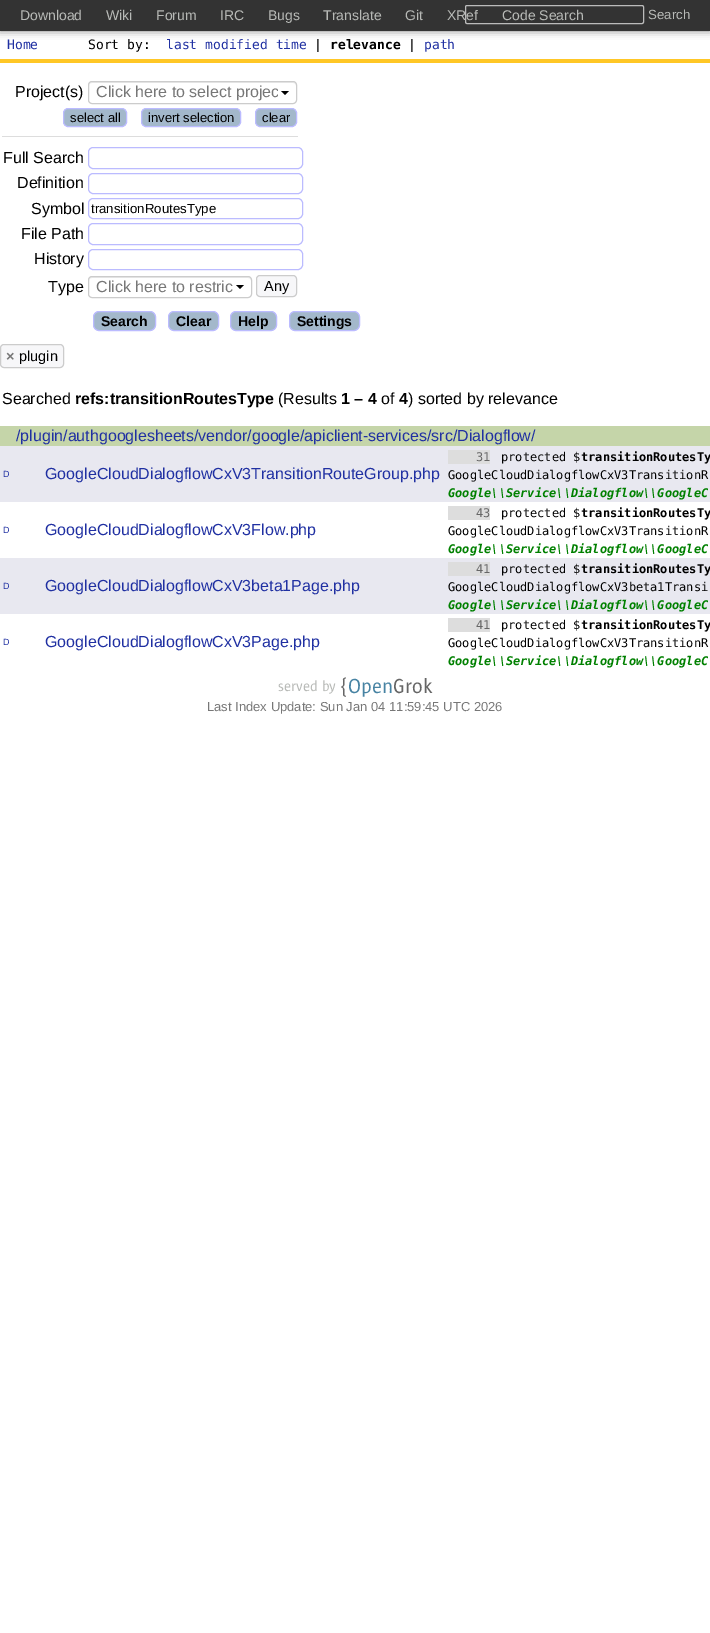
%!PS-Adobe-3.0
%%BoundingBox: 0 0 710 1633
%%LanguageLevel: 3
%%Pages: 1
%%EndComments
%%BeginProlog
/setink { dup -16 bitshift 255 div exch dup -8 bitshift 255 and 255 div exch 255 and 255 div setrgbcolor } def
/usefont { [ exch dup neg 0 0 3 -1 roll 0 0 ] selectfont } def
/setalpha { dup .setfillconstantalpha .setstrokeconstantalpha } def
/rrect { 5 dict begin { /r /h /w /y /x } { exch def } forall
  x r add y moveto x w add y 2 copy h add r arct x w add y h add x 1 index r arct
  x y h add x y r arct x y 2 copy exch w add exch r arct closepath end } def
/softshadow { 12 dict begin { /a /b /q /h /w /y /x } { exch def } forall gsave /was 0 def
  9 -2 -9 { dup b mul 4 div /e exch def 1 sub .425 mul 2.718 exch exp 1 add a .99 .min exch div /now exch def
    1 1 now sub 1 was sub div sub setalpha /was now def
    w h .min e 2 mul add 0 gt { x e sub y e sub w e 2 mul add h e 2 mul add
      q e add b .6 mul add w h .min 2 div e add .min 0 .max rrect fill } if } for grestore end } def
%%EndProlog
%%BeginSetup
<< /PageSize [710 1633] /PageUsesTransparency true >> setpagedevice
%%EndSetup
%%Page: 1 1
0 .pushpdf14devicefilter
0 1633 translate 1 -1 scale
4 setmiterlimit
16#FFFFFF setink
0 0 710 1633 rectfill
16#000000 setink
0 0 710 31 0 4 0.5 softshadow
16#333333 setink
0 0 710 31 rectfill
/LiberationSans-Regular 14 usefont
16#B8BAB7 setink
[
    [(Download) 20 20]
    [(Wiki) 106 20]
    [(Forum) 156 20]
    [(IRC) 220 20]
    [(Bugs) 268 20]
    [(Translate) 323 20]
    [(Git) 405 20]
] { aload pop moveto show } forall
16#BBBBBB setink
465.5 5.5 178 18 1.5 rrect stroke
16#B8BAB7 setink
447 20 moveto (XRef) show
502 20 moveto (Code Search) show
/LiberationSans-Regular 13.25 usefont
648 19 moveto (Search) show
/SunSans-Regular 15 usefont
278 691 moveto (served by) show
/SunSans-Regular 21 usefont
16#666666 setink
340 693 moveto ({) show
16#4783A3 setink
348 693 moveto (Open) show
16#666666 setink
393 693 moveto (Grok) show
/LiberationSans-Regular 13 usefont
16#777777 setink
207 711 moveto (Last Index Update: Sun Jan 04 11:59:45 UTC 2026) show
/DejaVuSansMono-Regular 13 usefont
16#2030A2 setink
7 49 moveto (Home) show
16#000000 setink
88 49 moveto (Sort by:) show
16#2030A2 setink
166 49 moveto (last modified time) show
16#000000 setink
314 49 moveto (|) show
/DejaVuSansMono-Bold 13 usefont
330 49 moveto (relevance) show
/DejaVuSansMono-Regular 13 usefont
408 49 moveto (|) show
16#2030A2 setink
424 49 moveto (path) show
16#FFC726 setink
0 59 710 4 rectfill
/LiberationSans-Regular 16 usefont
16#000000 setink
15 97 moveto (Project\(s\)) show
16#ECECEC setink
92 83 moveto 293 83 lineto 295 83 296 84 296 86 curveto 296 84 295 82 293 82 curveto 91 82 lineto 89 83 89 84 89 86 curveto 89 84 90 83 92 83 curveto closepath fill
16#CCCCCC setink
88.5 81.5 208 22 3.5 rrect stroke
gsave
96 83 182 18 rectclip
16#777777 setink
96 97 moveto (Click here to select projec) show
grestore
16#000000 setink
281 91 moveto 289 91 lineto 285 95 lineto closepath fill
16#DDDDDD setink
2 136 296 1 rectfill
16#A3B8CB setink
63.5 108.5 63 18 4.5 rrect gsave fill grestore
16#BBBBFF setink
stroke
/LiberationSans-Regular 13 usefont
16#000000 setink
70 122 moveto (select all) show
16#A3B8CB setink
141.5 108.5 99 18 4.5 rrect gsave fill grestore
16#BBBBFF setink
stroke
16#000000 setink
148 122 moveto (invert selection) show
16#A3B8CB setink
255.5 108.5 41 18 4.5 rrect gsave fill grestore
16#BBBBFF setink
stroke
16#000000 setink
262 122 moveto (clear) show
/LiberationSans-Regular 16 usefont
3 163 moveto (Full Search) show
16#BBBBFF setink
88.5 147.5 214 21 4.5 rrect stroke
16#000000 setink
17 188 moveto (Definition) show
16#BBBBFF setink
88.5 173.5 214 20 4.5 rrect stroke
16#000000 setink
31 214 moveto (Symbol) show
16#BBBBFF setink
88.5 198.5 214 20 4.5 rrect stroke
/LiberationSans-Regular 13.25 usefont
16#000000 setink
91 213 moveto (transitionRoutesType) show
/LiberationSans-Regular 16 usefont
21 239 moveto (File Path) show
16#BBBBFF setink
88.5 223.5 214 21 4.5 rrect stroke
16#000000 setink
34 264 moveto (History) show
16#BBBBFF setink
88.5 249.5 214 20 4.5 rrect stroke
16#000000 setink
48 292 moveto (Type) show
16#ECECEC setink
92 278 moveto 248 278 lineto 250 278 251 279 251 281 curveto 251 279 250 277 248 277 curveto 91 277 lineto 89 277 89 279 89 281 curveto 89 279 90 278 92 278 curveto closepath fill
16#CCCCCC setink
88.5 276.5 163 21 3.5 rrect stroke
16#777777 setink
96 292 moveto (Click here to restric) show
16#000000 setink
236 285 moveto 244 285 lineto 240 289 lineto closepath fill
16#F7F7F9 setink
256.5 275.5 40 21 3.5 rrect gsave fill grestore
16#CCCCCC setink
stroke
/LiberationSans-Regular 14.5 usefont
16#000000 setink
264 291 moveto (Any) show
16#A3B8CB setink
93.5 311.5 62 19 5.5 rrect gsave fill grestore
16#BBBBFF setink
stroke
/LiberationSans-Bold 14 usefont
16#000000 setink
101 326 moveto (Search) show
16#A3B8CB setink
168.5 311.5 50 19 5.5 rrect gsave fill grestore
16#BBBBFF setink
stroke
16#000000 setink
176 326 moveto (Clear) show
16#A3B8CB setink
230.5 311.5 46 19 5.5 rrect gsave fill grestore
16#BBBBFF setink
stroke
16#000000 setink
238 326 moveto (Help) show
16#A3B8CB setink
289.5 311.5 70 19 5.5 rrect gsave fill grestore
16#BBBBFF setink
stroke
16#000000 setink
297 326 moveto (Settings) show
16#F7F7F9 setink
0.5 344.5 63 23 3.5 rrect gsave fill grestore
16#CCCCCC setink
stroke
/LiberationSans-Bold 14.5 usefont
16#777777 setink
6 361 moveto (×) show
/LiberationSans-Regular 14.5 usefont
16#000000 setink
19 361 moveto (plugin) show
/LiberationSans-Regular 16 usefont
2 404 moveto (Searched) show
/LiberationSans-Bold 16 usefont
75 404 moveto (refs:transitionRoutesType) show
/LiberationSans-Regular 16 usefont
278 404 moveto (\(Results) show
/LiberationSans-Bold 16 usefont
341 404 moveto (1 – 4) show
/LiberationSans-Regular 16 usefont
381 404 moveto (of) show
/LiberationSans-Bold 16 usefont
399 404 moveto (4) show
/LiberationSans-Regular 16 usefont
408 404 moveto (\) sorted by relevance) show
16#C5D5A9 setink
0 426 710 20 rectfill
16#2030A2 setink
16 441 moveto (/plugin/authgooglesheets/vendor/google/apiclient-services/src/Dialogflow/) show
16#E8E8F0 setink
0 446 710 56 rectfill
/LiberationSans-Regular 9 usefont
16#2030A2 setink
3 477 moveto (D) show
/LiberationSans-Regular 16 usefont
45 479 moveto (GoogleCloudDialogflowCxV3TransitionRouteGroup.php) show
16#DDDDDD setink
448 450 42 14 rectfill
/DejaVuSansMono-Regular 12 usefont
16#666666 setink
476 461 moveto (31) show
16#000000 setink
501 461 moveto (protected $) show
/DejaVuSansMono-Bold 12 usefont
581 461 moveto (transitionRoutesTy) show
/DejaVuSansMono-Regular 12 usefont
448 479 moveto (GoogleCloudDialogflowCxV3TransitionR) show
/DejaVuSansMono-BoldItalic 12 usefont
16#008000 setink
448 497 moveto (Google\\\\Service\\\\Dialogflow\\\\GoogleC) show
/LiberationSans-Regular 9 usefont
16#2030A2 setink
3 533 moveto (D) show
/LiberationSans-Regular 16 usefont
45 535 moveto (GoogleCloudDialogflowCxV3Flow.php) show
16#DDDDDD setink
448 506 42 14 rectfill
/DejaVuSansMono-Regular 12 usefont
16#666666 setink
476 517 moveto (43) show
16#000000 setink
501 517 moveto (protected $) show
/DejaVuSansMono-Bold 12 usefont
581 517 moveto (transitionRoutesTy) show
/DejaVuSansMono-Regular 12 usefont
448 535 moveto (GoogleCloudDialogflowCxV3TransitionR) show
/DejaVuSansMono-BoldItalic 12 usefont
16#008000 setink
448 553 moveto (Google\\\\Service\\\\Dialogflow\\\\GoogleC) show
16#E8E8F0 setink
0 558 710 56 rectfill
/LiberationSans-Regular 9 usefont
16#2030A2 setink
3 589 moveto (D) show
/LiberationSans-Regular 16 usefont
45 591 moveto (GoogleCloudDialogflowCxV3beta1Page.php) show
16#DDDDDD setink
448 562 42 14 rectfill
/DejaVuSansMono-Regular 12 usefont
16#666666 setink
476 573 moveto (41) show
16#000000 setink
501 573 moveto (protected $) show
/DejaVuSansMono-Bold 12 usefont
581 573 moveto (transitionRoutesTy) show
/DejaVuSansMono-Regular 12 usefont
448 591 moveto (GoogleCloudDialogflowCxV3beta1Transi) show
/DejaVuSansMono-BoldItalic 12 usefont
16#008000 setink
448 609 moveto (Google\\\\Service\\\\Dialogflow\\\\GoogleC) show
/LiberationSans-Regular 9 usefont
16#2030A2 setink
3 645 moveto (D) show
/LiberationSans-Regular 16 usefont
45 647 moveto (GoogleCloudDialogflowCxV3Page.php) show
16#DDDDDD setink
448 618 42 14 rectfill
/DejaVuSansMono-Regular 12 usefont
16#666666 setink
476 629 moveto (41) show
16#000000 setink
501 629 moveto (protected $) show
/DejaVuSansMono-Bold 12 usefont
581 629 moveto (transitionRoutesTy) show
/DejaVuSansMono-Regular 12 usefont
448 647 moveto (GoogleCloudDialogflowCxV3TransitionR) show
/DejaVuSansMono-BoldItalic 12 usefont
16#008000 setink
448 665 moveto (Google\\\\Service\\\\Dialogflow\\\\GoogleC) show
.poppdf14devicefilter showpage
%%EOF
